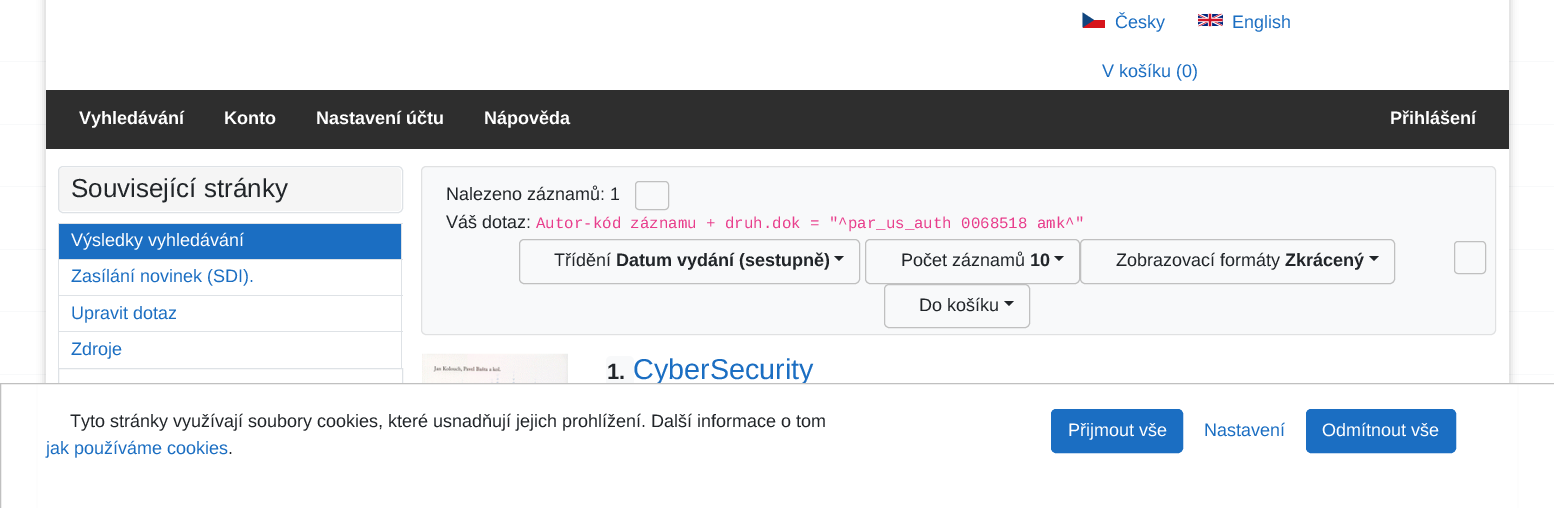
%!PS-Adobe-3.0
%%BoundingBox: 0 0 1554 508
%%LanguageLevel: 3
%%Pages: 1
%%EndComments
%%BeginProlog
/setink { dup -16 bitshift 255 div exch dup -8 bitshift 255 and 255 div exch 255 and 255 div setrgbcolor } def
/usefont { [ exch dup neg 0 0 3 -1 roll 0 0 ] selectfont } def
/setalpha { dup .setfillconstantalpha .setstrokeconstantalpha } def
/rrect { 5 dict begin { /r /h /w /y /x } { exch def } forall
  x r add y moveto x w add y 2 copy h add r arct x w add y h add x 1 index r arct
  x y h add x y r arct x y 2 copy exch w add exch r arct closepath end } def
/softshadow { 12 dict begin { /a /b /q /h /w /y /x } { exch def } forall gsave /was 0 def
  9 -2 -9 { dup b mul 4 div /e exch def 1 sub .425 mul 2.718 exch exp 1 add a .99 .min exch div /now exch def
    1 1 now sub 1 was sub div sub setalpha /was now def
    w h .min e 2 mul add 0 gt { x e sub y e sub w e 2 mul add h e 2 mul add
      q e add b .6 mul add w h .min 2 div e add .min 0 .max rrect fill } if } for grestore end } def
/drawimage { 5 dict begin { /h /w /y /x /name } { exch def } forall
  gsave x y translate w h scale
  w h 8 [w 0 0 h 0 0] name (r) file false 3 colorimage grestore end } def
%%EndProlog
%%BeginSetup
<< /PageSize [1554 508] /PageUsesTransparency true >> setpagedevice
%%EndSetup
%%Page: 1 1
0 .pushpdf14devicefilter
0 508 translate 1 -1 scale
4 setmiterlimit
16#FFFFFF setink
0 0 1554 508 rectfill
[
    [0 61 1554 1 16#F8F9FA]
    [0 124 1554 1 16#F8F9FA]
    [0 186 1554 1 16#F8F9FA]
    [0 249 1554 1 16#F8F9FA]
    [0 311 1554 1 16#F8F9FA]
    [0 374 1554 1 16#F8F9FA]
] { aload pop setink rectfill } forall
16#000000 setink
45 -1 1465 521 0 4 0.2 softshadow
16#FFFFFF setink
46 0 1463 383 rectfill
16#D7141A setink
1083 20 22 8 rectfill
16#11457E setink
1094 20 moveto 1082.5 12.5 lineto 1082.5 27.5 lineto closepath fill
/LiberationSans-Regular 18 usefont
16#1B6EC2 setink
1115 28 moveto (Česky) show
(img1.raw) 1198 13 25 14 drawimage
1232 28 moveto (English) show
1102 77 moveto (V košíku \(0\)) show
16#2E2E2E setink
46 90 1463 59 rectfill
/LiberationSans-Bold 18 usefont
16#FFFFFF setink
[
    [(Vyhledávání) 79 124]
    [(Konto) 224 124]
    [(Nastavení účtu) 316 124]
    [(Nápověda) 484 124]
    [(Přihlášení) 1390 124]
] { aload pop moveto show } forall
16#F5F5F5 setink
59 168 342 43 4 rrect fill
16#DEE2E6 setink
58.5 166.5 344 46 4.5 rrect stroke
/LiberationSans-Regular 26 usefont
16#212529 setink
71 197 moveto (Související stránky) show
[
    [58 223 345 1 16#DEE2E6]
    [401 223 1 36 16#DEE2E6]
    [58 223 1 36 16#DEE2E6]
    [59 224 342 35 16#1B6EC2]
] { aload pop setink rectfill } forall
/LiberationSans-Regular 18 usefont
16#FFFFFF setink
71 246 moveto (Výsledky vyhledávání) show
[
    [58 259 345 1 16#DEE2E6]
    [401 259 1 36 16#DEE2E6]
    [58 259 1 36 16#DEE2E6]
] { aload pop setink rectfill } forall
16#1B6EC2 setink
71 282 moveto (Zasílání novinek \(SDI\).) show
[
    [58 295 345 1 16#DEE2E6]
    [401 295 1 36 16#DEE2E6]
    [58 295 1 36 16#DEE2E6]
] { aload pop setink rectfill } forall
16#1B6EC2 setink
71 319 moveto (Upravit dotaz) show
[
    [58 331 345 1 16#DEE2E6]
    [401 331 1 37 16#DEE2E6]
    [58 331 1 37 16#DEE2E6]
] { aload pop setink rectfill } forall
16#1B6EC2 setink
71 355 moveto (Zdroje) show
16#DEE2E6 setink
58.5 368.5 344 36 rectstroke
16#F8F9FA setink
421 166 1075 169 5 rrect fill
0.12 setalpha
16#333333 setink
421.5 166.5 1074 168 4.5 rrect stroke
1 setalpha
16#212529 setink
446 200 moveto (Nalezeno záznamů: 1) show
16#C0C0C0 setink
635.5 181.5 33 28 3.5 rrect stroke
16#212529 setink
446 228 moveto (Váš dotaz:) show
/LiberationMono-Regular 15.75 usefont
16#E83E8C setink
536 228 moveto (Autor-kód záznamu + druh.dok = "^par_us_auth 0068518 amk^") show
16#C0C0C0 setink
519.5 239.5 340 44 4.5 rrect stroke
/LiberationSans-Regular 18 usefont
16#212529 setink
554 266 moveto (Třídění) show
/LiberationSans-Bold 18 usefont
616 266 moveto (Datum vydání \(sestupně\)) show
834 256 moveto 844 256 lineto 839 261 lineto closepath fill
16#C0C0C0 setink
865.5 239.5 214 44 4.5 rrect stroke
/LiberationSans-Regular 18 usefont
16#212529 setink
901 266 moveto (Počet záznamů) show
/LiberationSans-Bold 18 usefont
1030 266 moveto (10) show
1054 256 moveto 1064 256 lineto 1059 261 lineto closepath fill
16#C0C0C0 setink
1080.5 239.5 314 44 4.5 rrect stroke
/LiberationSans-Regular 18 usefont
16#212529 setink
1116 266 moveto (Zobrazovací formáty) show
/LiberationSans-Bold 18 usefont
1285 266 moveto (Zkrácený) show
1369 256 moveto 1379 256 lineto 1374 261 lineto closepath fill
16#C0C0C0 setink
884.5 284.5 145 43 4.5 rrect stroke
/LiberationSans-Regular 18 usefont
16#212529 setink
919 311 moveto (Do košíku) show
1004 301 moveto 1014 301 lineto 1009 306 lineto closepath fill
16#C0C0C0 setink
1454.5 241.5 31 32 3.5 rrect stroke
(img2.raw) 422 353 146 30 drawimage
16#F8F9FA setink
606 356 28 33 5 rrect fill
/LiberationSans-Bold 22 usefont
16#212529 setink
607 379 moveto (1.) show
/LiberationSans-Regular 28.75 usefont
16#1B6EC2 setink
633 379 moveto (CyberSecurity) show
16#FFFFFF setink
38 384 1479 124 rectfill
16#C0C0C0 setink
0.5 383.5 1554 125 rectstroke
/LiberationSans-Regular 18 usefont
16#212529 setink
70 427 moveto (Tyto stránky využívají soubory cookies, které usnadňují jejich prohlížení. Další informace o tom) show
16#1B6EC2 setink
46 454 moveto (jak používáme cookies) show
16#212529 setink
228 454 moveto (.) show
16#1B6EC2 setink
1051.5 409.5 131 43 4.5 rrect gsave fill grestore
stroke
16#FFFFFF setink
1068 436 moveto (Přijmout vše) show
16#1B6EC2 setink
1204 436 moveto (Nastavení) show
1306.5 409.5 149 43 4.5 rrect gsave fill grestore
stroke
16#FFFFFF setink
1322 436 moveto (Odmítnout vše) show
.poppdf14devicefilter showpage
%%EOF
